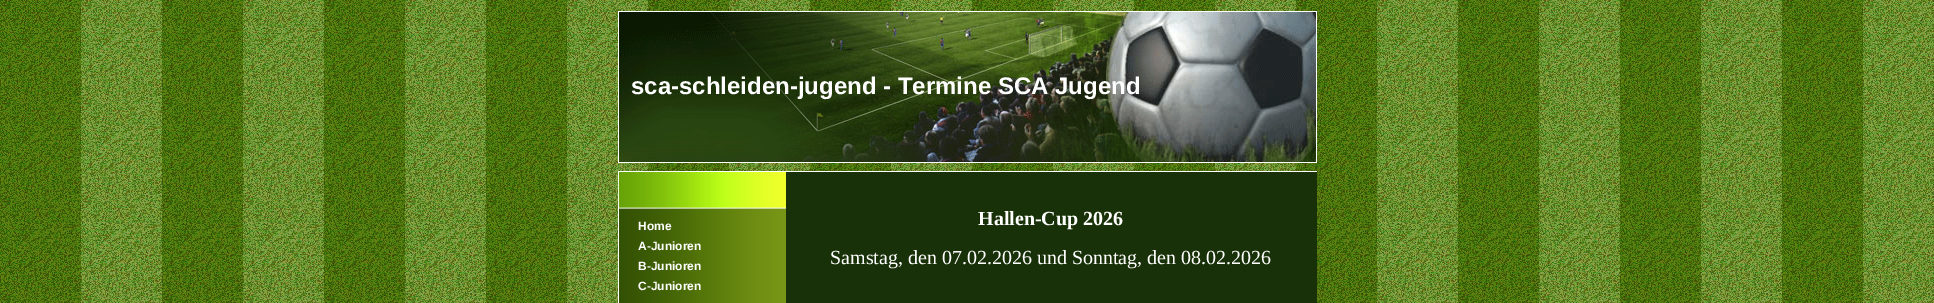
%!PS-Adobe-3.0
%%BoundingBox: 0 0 1934 303
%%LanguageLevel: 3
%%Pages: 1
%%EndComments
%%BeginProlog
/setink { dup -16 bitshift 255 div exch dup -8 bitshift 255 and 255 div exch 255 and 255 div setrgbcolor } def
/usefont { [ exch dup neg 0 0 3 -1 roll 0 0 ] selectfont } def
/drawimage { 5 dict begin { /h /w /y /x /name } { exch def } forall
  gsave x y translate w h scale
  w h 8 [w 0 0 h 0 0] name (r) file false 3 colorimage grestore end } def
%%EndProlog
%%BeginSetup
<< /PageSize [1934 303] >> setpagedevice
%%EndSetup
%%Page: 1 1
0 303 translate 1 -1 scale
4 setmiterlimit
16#FFFFFF setink
0 0 1934 303 rectfill
(img1.raw) 0 0 1934 303 drawimage
(img2.raw) 618 11 699 152 drawimage
/LiberationSans-Bold 24 usefont
631 94 moveto (sca-schleiden-jugend - Termine SCA Jugend) show
(img3.raw) 618 209 168 94 drawimage
(img4.raw) 618 171 168 38 drawimage
/LiberationSans-Bold 12 usefont
[
    [(Home) 638 230]
    [(A-Junioren) 638 250]
    [(B-Junioren) 638 270]
    [(C-Junioren) 638 290]
] { aload pop moveto show } forall
16#193109 setink
786 172 531 131 rectfill
16#FFFFFF setink
786 171 531 1 rectfill
/LiberationSerif-Bold 20 usefont
978 225 moveto (Hallen-Cup 2026) show
/LiberationSerif-Regular 20 usefont
830 264 moveto (Samstag, den 07.02.2026 und Sonntag, den 08.02.2026) show
showpage
%%EOF
